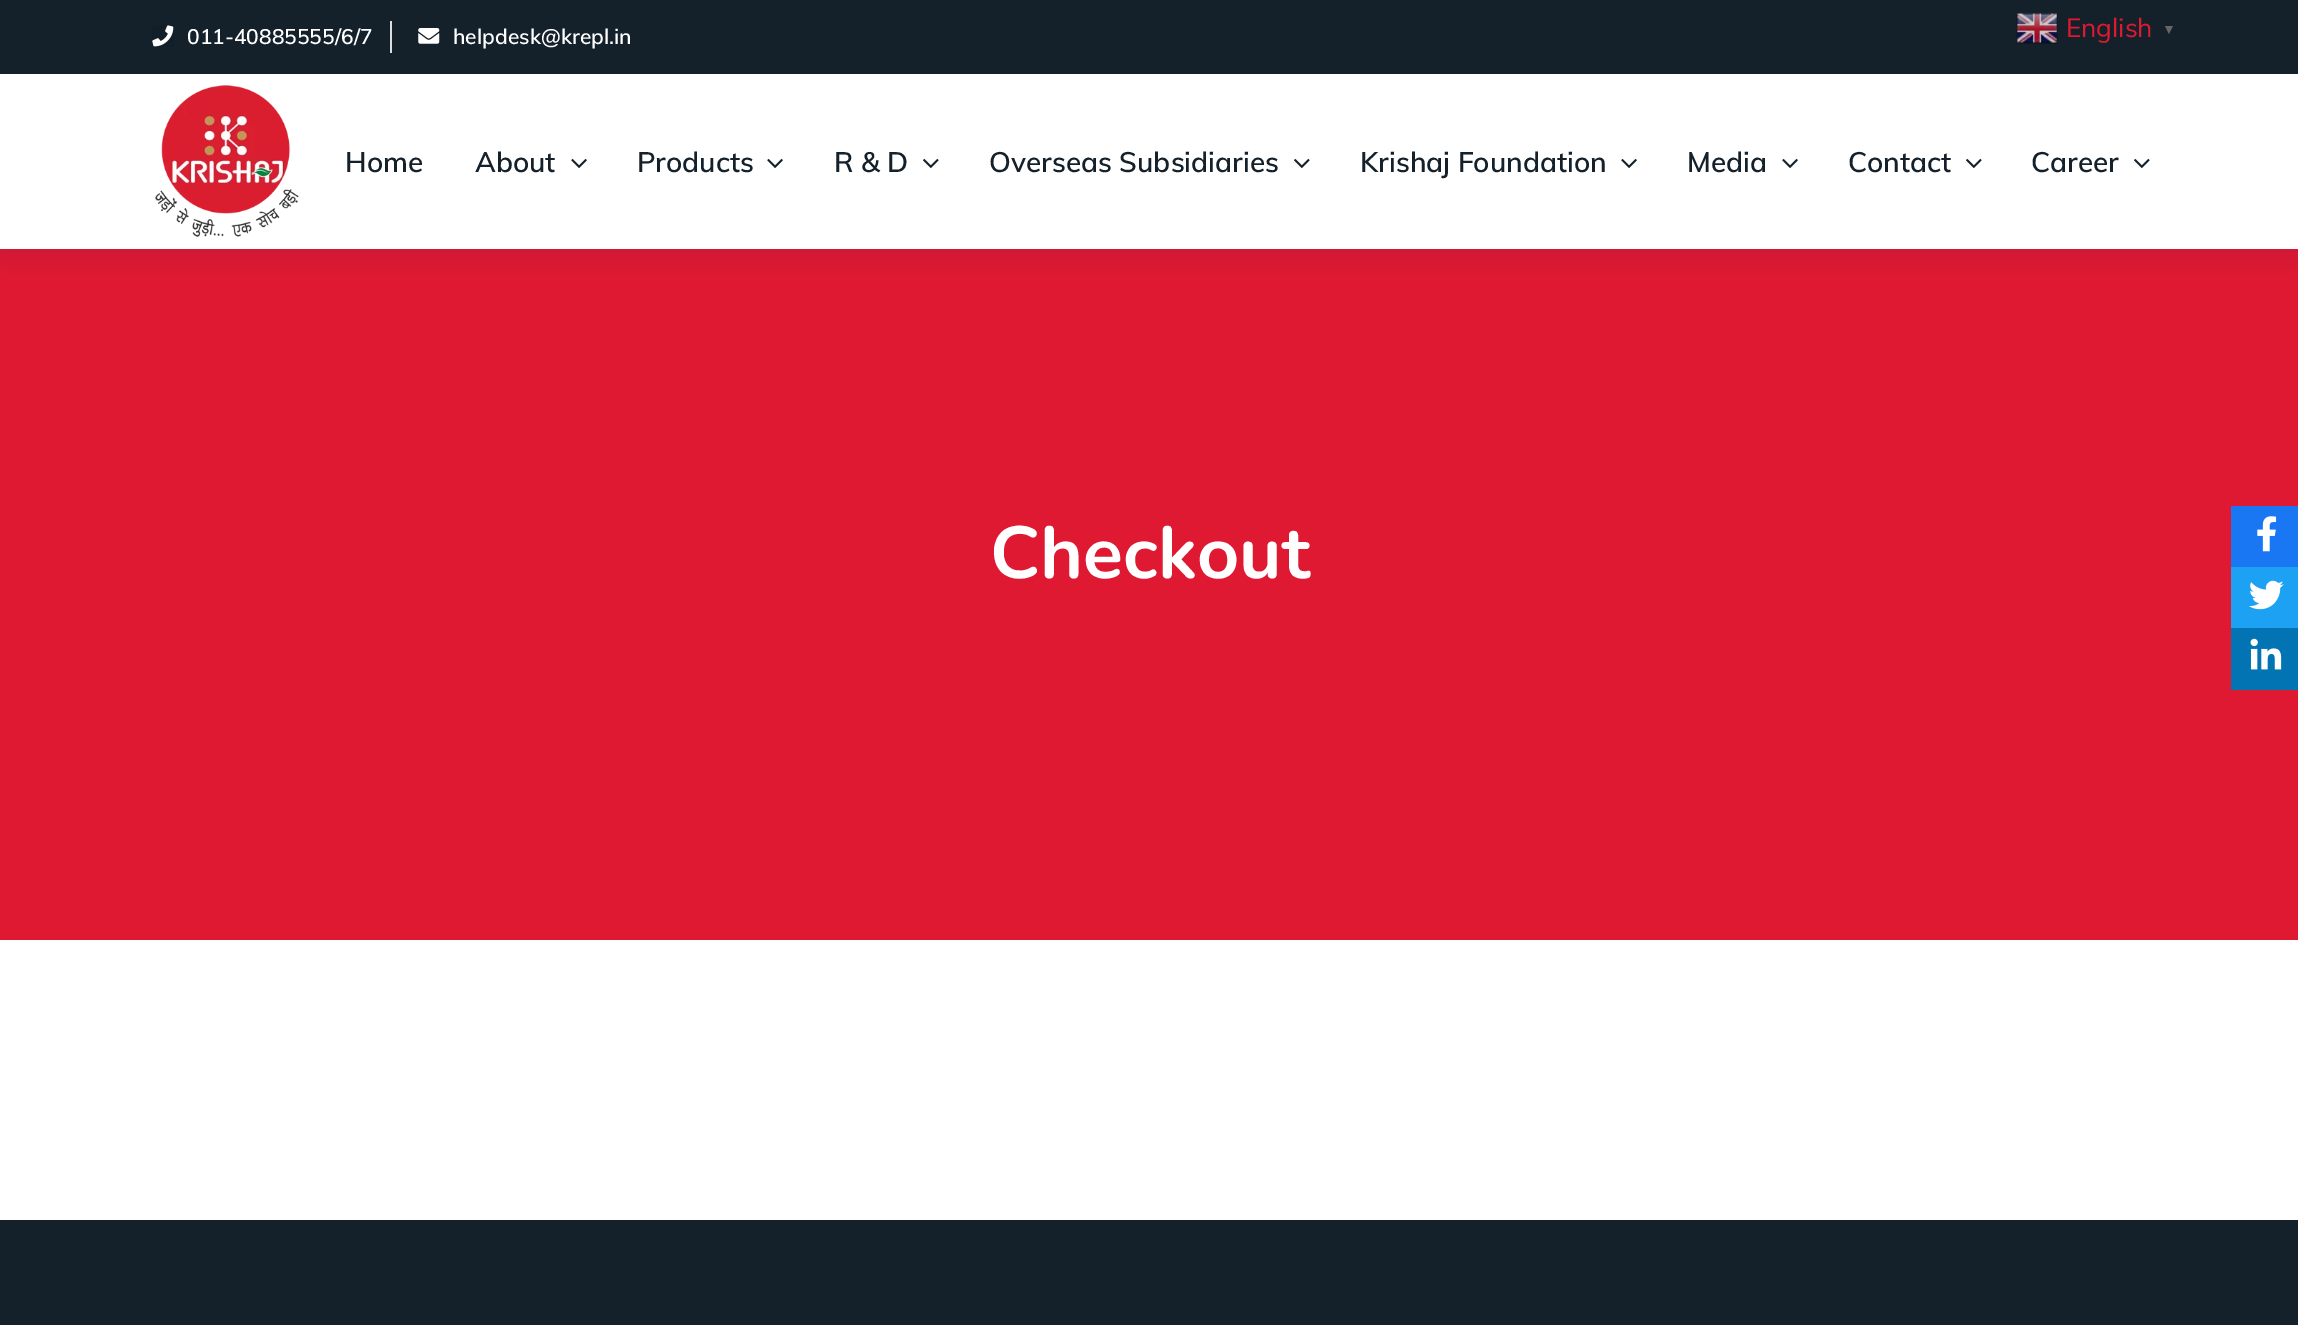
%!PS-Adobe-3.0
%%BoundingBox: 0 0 2298 1325
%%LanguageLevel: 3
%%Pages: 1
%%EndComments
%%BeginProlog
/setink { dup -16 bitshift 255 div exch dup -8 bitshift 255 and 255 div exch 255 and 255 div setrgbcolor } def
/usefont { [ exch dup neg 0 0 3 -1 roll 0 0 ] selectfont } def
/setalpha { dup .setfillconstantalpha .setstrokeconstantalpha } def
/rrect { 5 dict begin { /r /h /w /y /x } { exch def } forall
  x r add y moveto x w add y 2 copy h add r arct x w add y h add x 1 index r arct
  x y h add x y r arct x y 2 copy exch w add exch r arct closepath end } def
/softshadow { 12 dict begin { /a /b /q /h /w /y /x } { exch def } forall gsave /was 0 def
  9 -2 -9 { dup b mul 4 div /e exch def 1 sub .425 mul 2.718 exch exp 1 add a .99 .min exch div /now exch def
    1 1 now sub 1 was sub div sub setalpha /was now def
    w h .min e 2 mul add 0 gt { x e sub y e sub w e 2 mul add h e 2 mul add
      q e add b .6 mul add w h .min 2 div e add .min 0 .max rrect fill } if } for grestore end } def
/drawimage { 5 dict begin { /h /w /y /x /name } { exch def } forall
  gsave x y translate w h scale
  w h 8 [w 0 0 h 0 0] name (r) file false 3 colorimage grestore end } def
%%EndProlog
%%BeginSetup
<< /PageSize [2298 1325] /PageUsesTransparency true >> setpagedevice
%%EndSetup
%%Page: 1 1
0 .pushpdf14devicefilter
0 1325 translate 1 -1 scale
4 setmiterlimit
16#FFFFFF setink
0 0 2298 1325 rectfill
16#E01932 setink
0 249 2298 691 rectfill
16#002155 setink
0 9 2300 248 0 13 0.1 softshadow
16#14212B setink
0 0 2298 74 rectfill
(img1.raw) 2016 13 42 31 drawimage
/Muli-Regular 26 usefont
16#E01932 setink
2066 37 moveto (English) show
/LiberationSans-Bold 14 usefont
16#666666 setink
2162 34 moveto (▼) show
16#FFFFFF setink
0 74 2298 175 rectfill
(img2.raw) 152 25 22 22 drawimage
/Muli-SemiBold 21 usefont
187 44 moveto (011-40885555/6/7) show
16#DDDDDD setink
390 21 2 32 rectfill
(img3.raw) 418 28 22 16 drawimage
16#FFFFFF setink
453 44 moveto (helpdesk@krepl.in) show
(img4.raw) 155 85 144 152 drawimage
/Muli-SemiBold 28 usefont
16#14212B setink
345 172 moveto (Home) show
475 172 moveto (About) show
(img5.raw) 571 159 16 9 drawimage
637 172 moveto (Products) show
(img5.raw) 767 159 16 9 drawimage
834 172 moveto (R & D) show
(img6.raw) 923 159 16 9 drawimage
989 172 moveto (Overseas Subsidiaries) show
(img6.raw) 1294 159 16 9 drawimage
1360 172 moveto (Krishaj Foundation) show
(img5.raw) 1621 159 16 9 drawimage
1687 172 moveto (Media) show
(img5.raw) 1782 159 16 9 drawimage
1848 172 moveto (Contact) show
(img6.raw) 1966 159 16 9 drawimage
2031 172 moveto (Career) show
(img6.raw) 2134 159 16 9 drawimage
/Nunito-Bold 73.5 usefont
16#FFFFFF setink
990 578 moveto (Checkout) show
16#1977F3 setink
2231 506 67 61 rectfill
(img7.raw) 2257 516 20 36 drawimage
16#1DA1F2 setink
2231 567 67 61 rectfill
(img8.raw) 2249 580 35 30 drawimage
16#0274B3 setink
2231 628 67 62 rectfill
(img9.raw) 2250 638 32 32 drawimage
16#14212B setink
0 1220 2298 105 rectfill
.poppdf14devicefilter showpage
%%EOF
